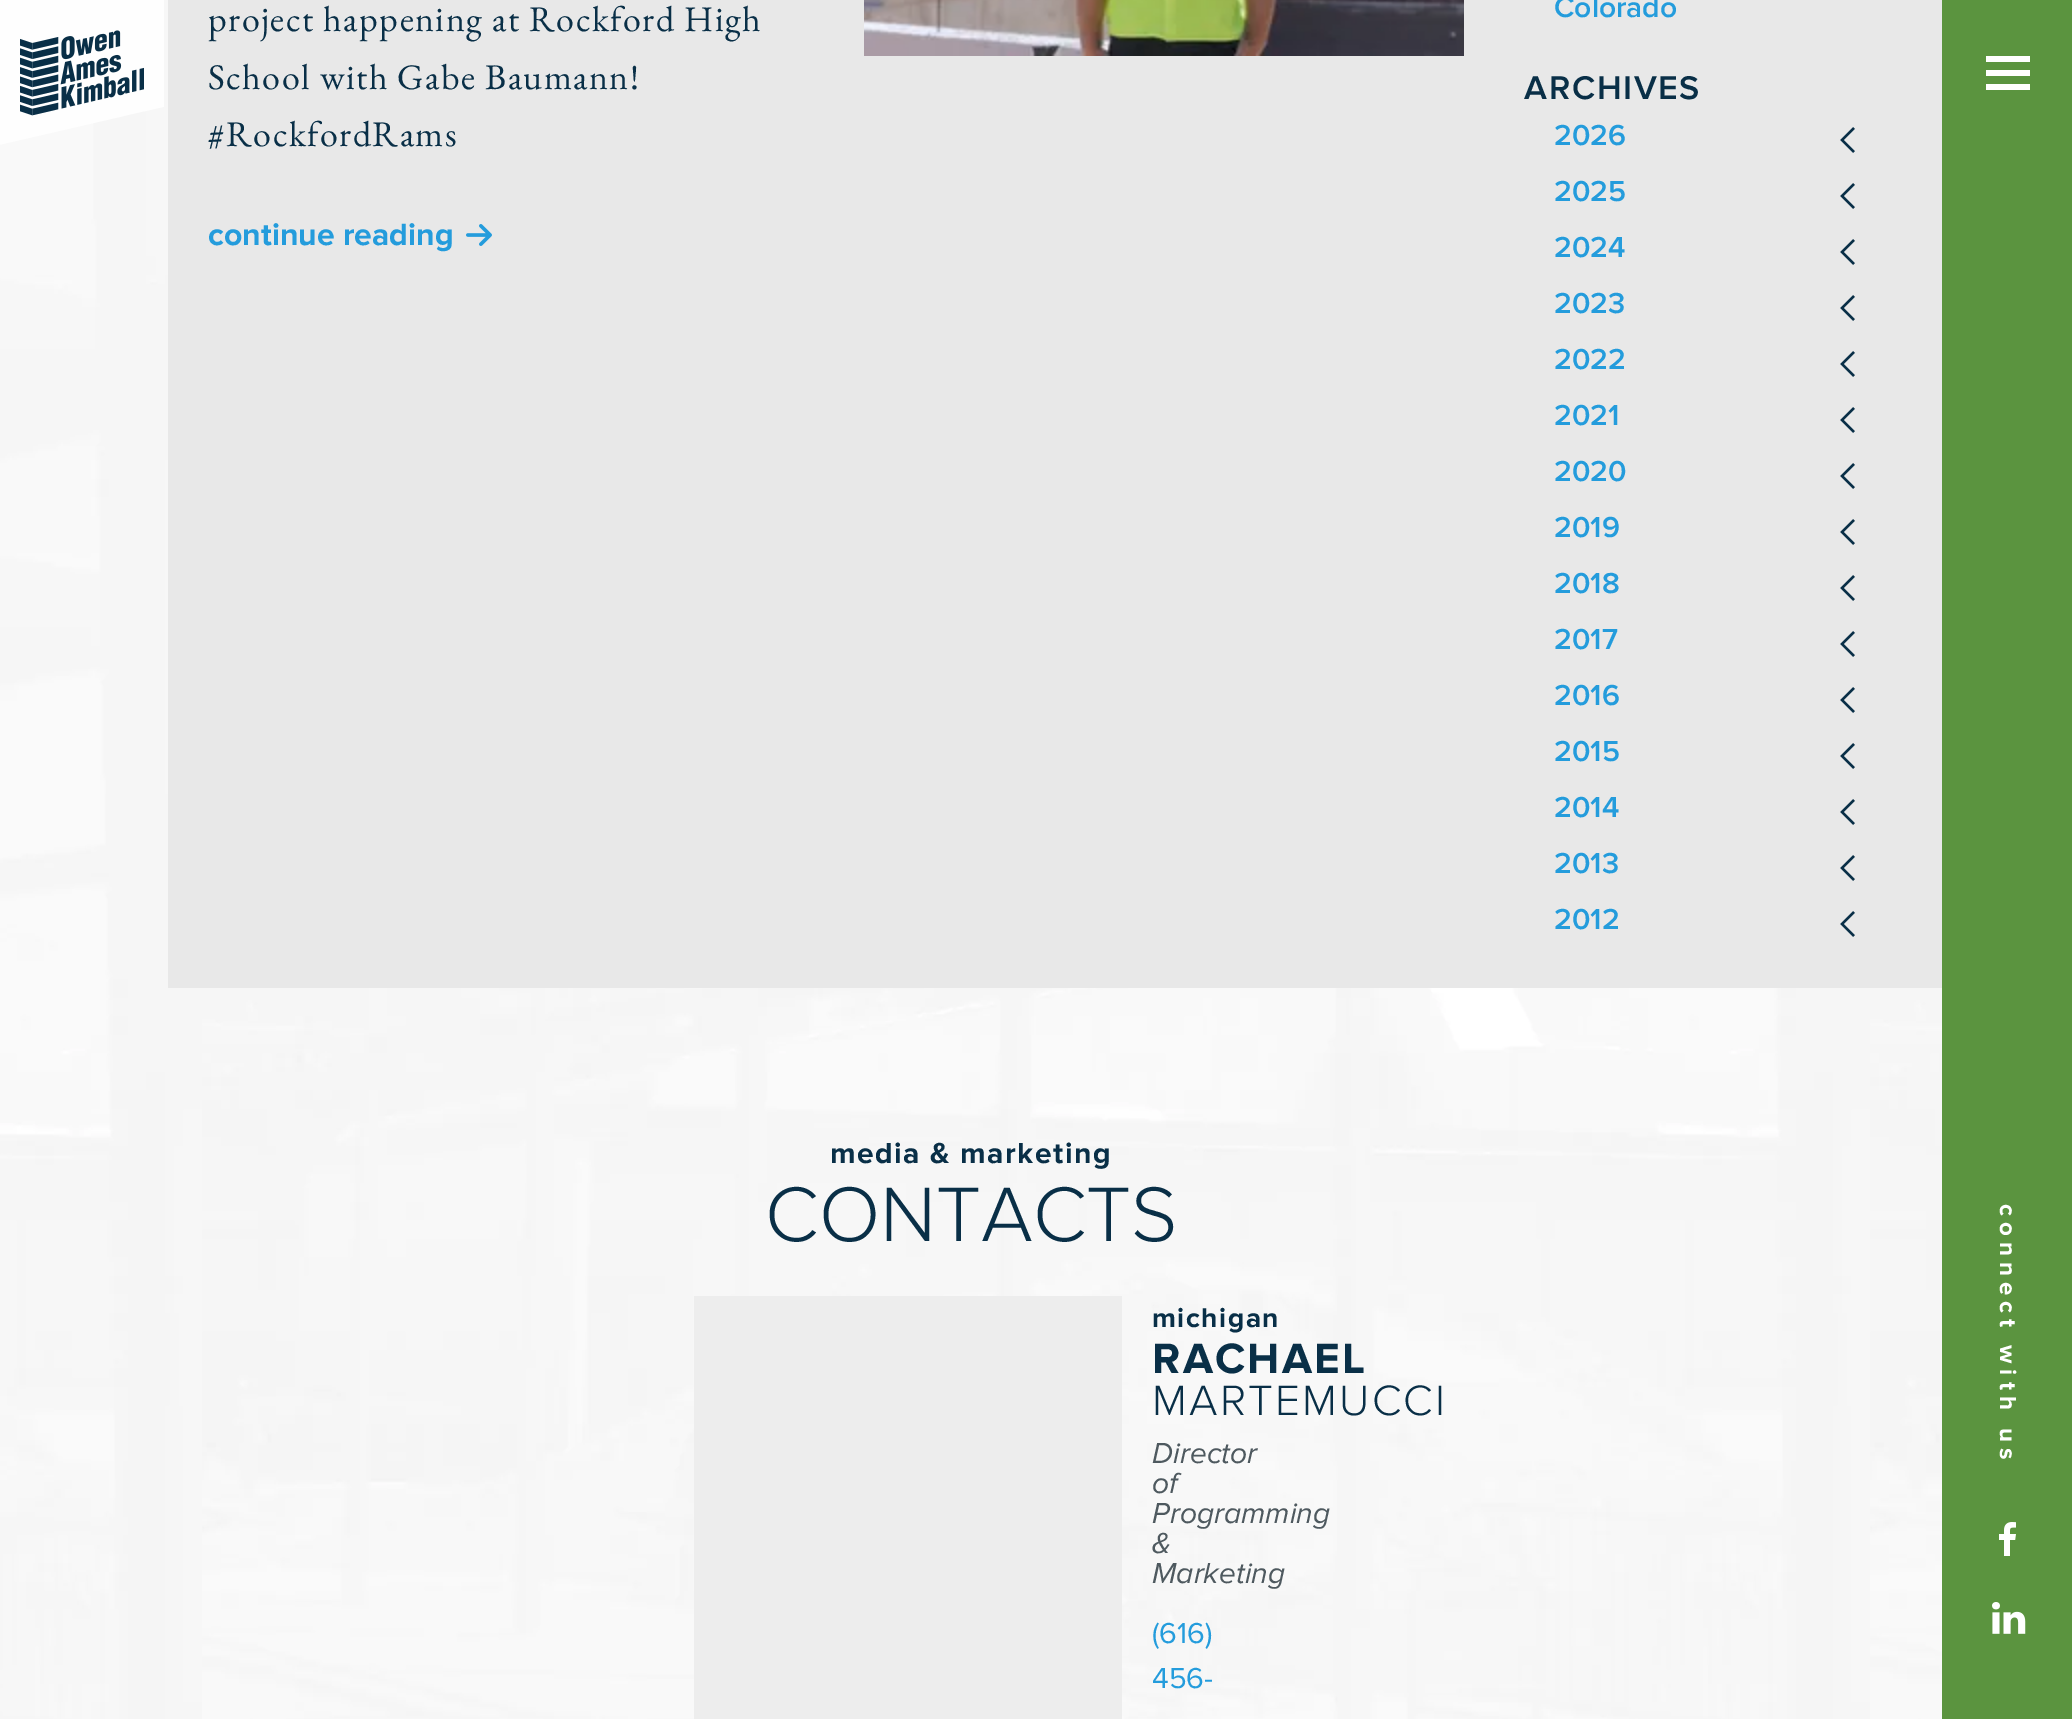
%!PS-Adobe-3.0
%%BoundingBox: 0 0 2072 1719
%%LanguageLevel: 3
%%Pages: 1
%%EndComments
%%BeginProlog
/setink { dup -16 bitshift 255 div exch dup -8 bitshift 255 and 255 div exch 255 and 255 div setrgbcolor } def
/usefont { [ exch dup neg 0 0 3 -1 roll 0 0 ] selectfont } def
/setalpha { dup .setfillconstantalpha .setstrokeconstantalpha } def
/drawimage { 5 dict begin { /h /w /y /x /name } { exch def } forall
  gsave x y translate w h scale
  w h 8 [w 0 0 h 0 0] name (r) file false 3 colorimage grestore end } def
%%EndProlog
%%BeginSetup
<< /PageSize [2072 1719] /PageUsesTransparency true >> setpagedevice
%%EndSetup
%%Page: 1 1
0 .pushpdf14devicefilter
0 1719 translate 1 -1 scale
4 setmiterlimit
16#FFFFFF setink
0 0 2072 1719 rectfill
(img1.raw) 0 0 1942 1719 drawimage
16#E8E8E8 setink
168 0 1774 988 rectfill
/EBGaramond-Regular 36 usefont
16#092F47 setink
208 31 moveto 1.45 0 (project happening at Rockford High) ashow
208 89 moveto 1.45 0 (School with Gabe Baumann!) ashow
208 146 moveto 1.45 0 (#RockfordRams) ashow
/ProximaNova-Bold 32 usefont
16#249CDC setink
208 245 moveto (continue reading) show
(img2.raw) 466 224 26 22 drawimage
(img3.raw) 864 0 600 56 drawimage
/ProximaNova-SemiBold 30 usefont
1554 17 moveto (Colorado) show
/ProximaNova-SemiBold 34 usefont
16#092F47 setink
1524 99 moveto 1.75 0 (ARCHIVES) ashow
/ProximaNova-SemiBold 30 usefont
16#249CDC setink
1554 145 moveto (2026) show
16#092F47 setink
2.2 setlinewidth
1854 128 moveto 1842 140 lineto 1854 152 lineto stroke
16#249CDC setink
1554 201 moveto (2025) show
16#092F47 setink
1854 184 moveto 1842 196 lineto 1854 208 lineto stroke
16#249CDC setink
1554 257 moveto (2024) show
16#092F47 setink
1854 240 moveto 1842 252 lineto 1854 264 lineto stroke
16#249CDC setink
1554 313 moveto (2023) show
16#092F47 setink
1854 296 moveto 1842 308 lineto 1854 320 lineto stroke
16#249CDC setink
1554 369 moveto (2022) show
16#092F47 setink
1854 352 moveto 1842 364 lineto 1854 376 lineto stroke
16#249CDC setink
1554 425 moveto (2021) show
16#092F47 setink
1854 408 moveto 1842 420 lineto 1854 432 lineto stroke
16#249CDC setink
1554 481 moveto (2020) show
16#092F47 setink
1854 464 moveto 1842 476 lineto 1854 488 lineto stroke
16#249CDC setink
1554 537 moveto (2019) show
16#092F47 setink
1854 520 moveto 1842 532 lineto 1854 544 lineto stroke
16#249CDC setink
1554 593 moveto (2018) show
16#092F47 setink
1854 576 moveto 1842 588 lineto 1854 600 lineto stroke
16#249CDC setink
1554 649 moveto (2017) show
16#092F47 setink
1854 632 moveto 1842 644 lineto 1854 656 lineto stroke
16#249CDC setink
1554 705 moveto (2016) show
16#092F47 setink
1854 688 moveto 1842 700 lineto 1854 712 lineto stroke
16#249CDC setink
1554 761 moveto (2015) show
16#092F47 setink
1854 744 moveto 1842 756 lineto 1854 768 lineto stroke
16#249CDC setink
1554 817 moveto (2014) show
16#092F47 setink
1854 800 moveto 1842 812 lineto 1854 824 lineto stroke
16#249CDC setink
1554 873 moveto (2013) show
16#092F47 setink
1854 856 moveto 1842 868 lineto 1854 880 lineto stroke
16#249CDC setink
1554 929 moveto (2012) show
16#092F47 setink
1854 912 moveto 1842 924 lineto 1854 936 lineto stroke
/ProximaNova-Bold 30 usefont
830 1163 moveto 1.5 0 (media & marketing) ashow
/ProximaNova-Light 80 usefont
765 1241 moveto (CONTACTS) show
16#EDEDED setink
694 1296 428 423 rectfill
/ProximaNova-Bold 28 usefont
16#092F47 setink
1152 1327 moveto 1.5 0 (michigan) ashow
/ProximaNova-Bold 44 usefont
1152 1373 moveto 2.25 0 (RACHAEL) ashow
/ProximaNova-Light 44 usefont
1152 1415 moveto 2.25 0 (MARTEMUCCI) ashow
/ProximaNova-Italic 30 usefont
16#4E595F setink
[
    [(Director) 1152 1463]
    [(of) 1152 1493]
    [(Programming) 1152 1523]
    [(&) 1152 1553]
    [(Marketing) 1152 1583]
] { aload pop moveto show } forall
/ProximaNova-Regular 30 usefont
16#249CDC setink
1152 1643 moveto (\(616\)) show
1152 1688 moveto (456-) show
16#5B943F setink
1942 0 130 1719 rectfill
gsave
0 0 164 146 rectclip
0.9 setalpha
16#FFFFFF setink
190 -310 moveto 280 80 lineto -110 170 lineto -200 -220 lineto closepath fill
grestore
(img4.raw) 20 30 124 86 drawimage
[
    [1986 56 44 6 16#FFFFFF]
    [1986 70 44 6 16#FFFFFF]
    [1986 84 44 6 16#FFFFFF]
] { aload pop setink rectfill } forall
/ProximaNova-Bold 24 usefont
gsave 2000 1204 translate 90 rotate 0 0 moveto 6 0 (connect with us) ashow grestore
(img5.raw) 1999 1522 17 34 drawimage
(img6.raw) 1992 1602 34 32 drawimage
.poppdf14devicefilter showpage
%%EOF
